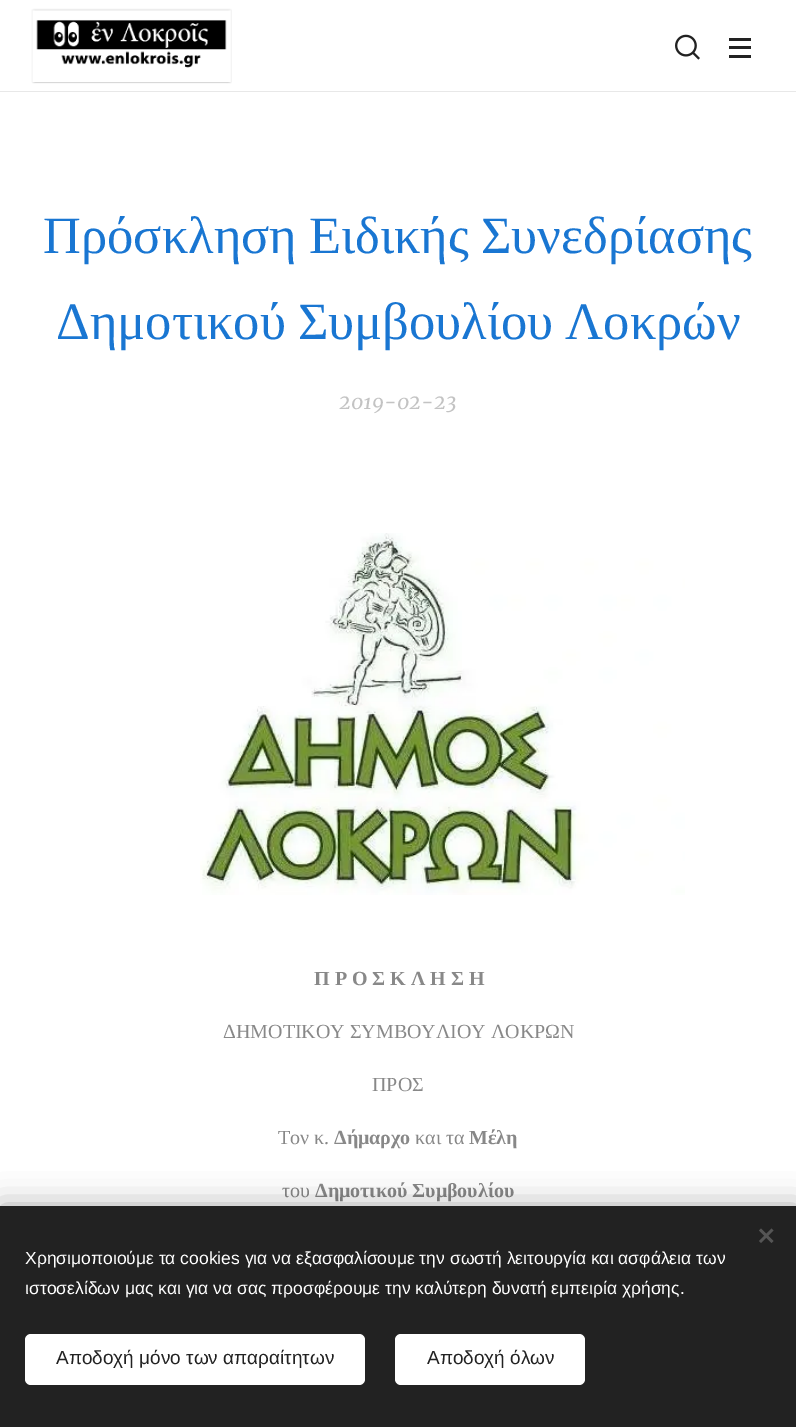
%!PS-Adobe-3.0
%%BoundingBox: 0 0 796 1427
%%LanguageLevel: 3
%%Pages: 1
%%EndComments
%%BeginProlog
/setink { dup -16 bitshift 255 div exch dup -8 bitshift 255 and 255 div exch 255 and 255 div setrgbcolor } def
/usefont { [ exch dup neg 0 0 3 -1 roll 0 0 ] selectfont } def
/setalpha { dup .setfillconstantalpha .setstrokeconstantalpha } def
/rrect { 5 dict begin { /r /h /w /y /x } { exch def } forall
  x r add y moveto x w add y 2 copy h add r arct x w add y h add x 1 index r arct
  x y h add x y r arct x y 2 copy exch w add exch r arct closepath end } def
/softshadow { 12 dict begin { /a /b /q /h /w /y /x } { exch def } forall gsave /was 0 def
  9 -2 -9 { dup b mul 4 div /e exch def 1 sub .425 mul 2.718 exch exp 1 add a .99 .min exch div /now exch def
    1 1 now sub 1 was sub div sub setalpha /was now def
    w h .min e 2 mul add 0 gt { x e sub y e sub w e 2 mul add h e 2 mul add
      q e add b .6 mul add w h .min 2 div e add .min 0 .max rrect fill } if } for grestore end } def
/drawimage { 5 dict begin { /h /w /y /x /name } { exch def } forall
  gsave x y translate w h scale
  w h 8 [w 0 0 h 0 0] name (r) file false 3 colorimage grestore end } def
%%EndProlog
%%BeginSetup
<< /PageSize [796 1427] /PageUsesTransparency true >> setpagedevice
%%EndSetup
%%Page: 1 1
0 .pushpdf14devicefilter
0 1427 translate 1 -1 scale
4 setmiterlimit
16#FFFFFF setink
0 0 796 1427 rectfill
(img1.raw) 31 8 201 76 drawimage
(img2.raw) 675 34 25 26 drawimage
[
    [729 46 22 3 16#222222]
    [729 38 22 3 16#222222]
    [729 55 22 3 16#222222]
    [0 91 796 1 16#E8E8E8]
] { aload pop setink rectfill } forall
/LiberationSerif-Regular 52.5 usefont
16#1976D2 setink
43 253 moveto -1 0 32 (Πρόσκληση Ειδικής Συνεδρίασης) widthshow
56 339 moveto -1 0 32 (Δημοτικού Συμβουλίου Λοκρών) widthshow
/Merriweather-Italic 20 usefont
16#C3C3C3 setink
339 409 moveto (2019-02-23) show
(img3.raw) 200 533 485 362 drawimage
/LiberationSerif-Bold 20 usefont
16#888888 setink
314 985 moveto (Π Ρ Ο Σ Κ Λ Η Σ Η) show
/LiberationSerif-Regular 20 usefont
[
    [(ΔΗΜΟΤΙΚΟΥ ΣΥΜΒΟΥΛΙΟΥ ΛΟΚΡΩΝ) 223 1038]
    [(ΠΡΟΣ) 372 1091]
    [(Τον κ.) 278 1144]
] { aload pop moveto show } forall
/LiberationSerif-Bold 20 usefont
334 1144 moveto (Δήμαρχο) show
/LiberationSerif-Regular 20 usefont
415 1144 moveto (και τα) show
/LiberationSerif-Bold 20 usefont
469 1144 moveto (Μέλη) show
/LiberationSerif-Regular 20 usefont
282 1197 moveto (του) show
/LiberationSerif-Bold 20 usefont
315 1197 moveto (Δημοτικού Συμβουλίου) show
16#000000 setink
0 1206 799 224 0 15.5 0.33 softshadow
16#222222 setink
0 1206 796 221 rectfill
16#555555 setink
759 1241 moveto 771.5 1228.5 lineto 773.5 1230.5 lineto 761 1243 lineto closepath fill
761 1228.5 moveto 773.5 1241 lineto 771.5 1243 lineto 759 1230.5 lineto closepath fill
/LiberationSans-Regular 17.5 usefont
16#FFFFFF setink
25 1264 moveto (Χρησιμοποιούμε τα cookies για να εξασφαλίσουμε την σωστή λειτουργία και ασφάλεια των) show
25 1294 moveto (ιστοσελίδων μας και για να σας προσφέρουμε την καλύτερη δυνατή εμπειρία χρήσης.) show
25 1334 340 51 6 rrect fill
/LiberationSans-Regular 19 usefont
16#222222 setink
56 1364 moveto (Αποδοχή μόνο των απαραίτητων) show
16#FFFFFF setink
395 1334 190 51 6 rrect fill
16#222222 setink
427 1364 moveto (Αποδοχή όλων) show
.poppdf14devicefilter showpage
%%EOF
